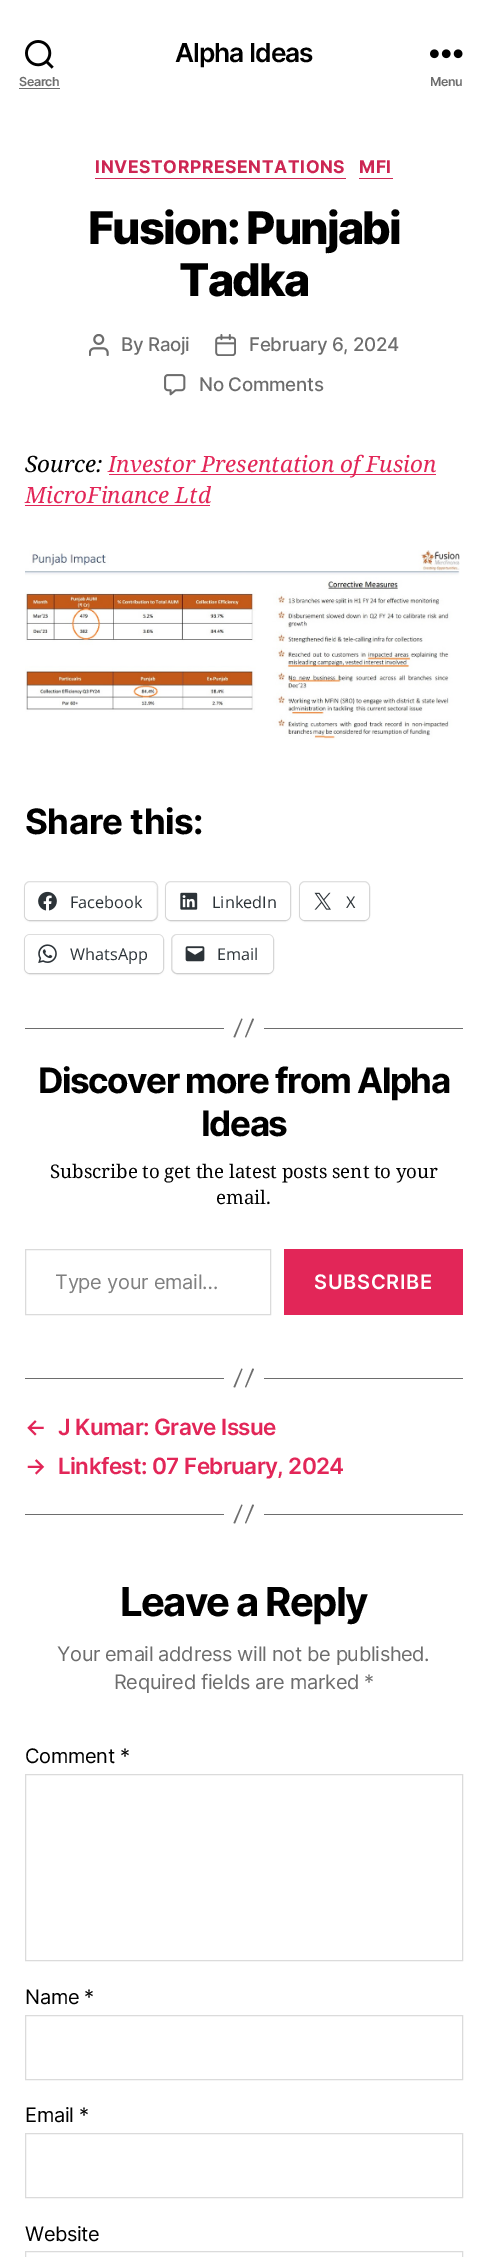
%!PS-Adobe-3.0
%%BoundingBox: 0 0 487 2257
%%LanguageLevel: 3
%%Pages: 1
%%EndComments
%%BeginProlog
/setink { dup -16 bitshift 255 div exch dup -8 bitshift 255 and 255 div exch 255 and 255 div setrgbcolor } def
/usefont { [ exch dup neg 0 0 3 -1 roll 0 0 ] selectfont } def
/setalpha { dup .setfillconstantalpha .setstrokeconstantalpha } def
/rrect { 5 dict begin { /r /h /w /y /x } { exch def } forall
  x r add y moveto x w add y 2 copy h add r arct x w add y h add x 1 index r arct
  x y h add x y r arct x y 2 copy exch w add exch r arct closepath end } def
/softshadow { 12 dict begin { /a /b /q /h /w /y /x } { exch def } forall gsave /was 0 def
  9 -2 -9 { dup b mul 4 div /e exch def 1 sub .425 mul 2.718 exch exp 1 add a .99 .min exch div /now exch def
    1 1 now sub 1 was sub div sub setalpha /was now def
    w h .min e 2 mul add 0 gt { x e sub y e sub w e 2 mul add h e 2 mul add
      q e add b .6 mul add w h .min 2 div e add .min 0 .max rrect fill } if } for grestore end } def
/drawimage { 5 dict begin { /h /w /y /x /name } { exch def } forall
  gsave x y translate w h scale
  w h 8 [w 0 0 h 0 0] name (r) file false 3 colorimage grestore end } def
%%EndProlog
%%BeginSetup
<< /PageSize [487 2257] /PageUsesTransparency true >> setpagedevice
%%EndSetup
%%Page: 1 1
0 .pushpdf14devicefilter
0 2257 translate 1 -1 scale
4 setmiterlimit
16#FFFFFF setink
0 0 487 2257 rectfill
/Inter-SemiBold 26.25 usefont
16#000000 setink
175 62 moveto -1 0 (Alpha Ideas) ashow
(img1.raw) 25 40 29 29 drawimage
/Inter-SemiBold 12.5 usefont
16#6D6D6D setink
19 86 moveto -0.35 0 (Search) ashow
19 88 41 1 rectfill
(img2.raw) 430 49 33 10 drawimage
430 86 moveto -0.35 0 (Menu) ashow
16#CD2653 setink
95 178 251 1 rectfill
/Inter-Bold 17.5 usefont
95 173 moveto 0.6 0 (INVESTORPRESENTATIONS) ashow
359 178 34 1 rectfill
359 173 moveto 0.6 0 (MFI) ashow
/Inter-ExtraBold 45 usefont
16#000000 setink
88 244 moveto -1.9 0 (Fusion: Punjabi) ashow
179 296 moveto -1.9 0 (Tadka) ashow
(img3.raw) 89 334 20 22 drawimage
/Inter-Medium 18.75 usefont
16#6D6D6D setink
121 351 moveto -0.3 0 (By Raoji) ashow
(img4.raw) 215 334 21 22 drawimage
249 351 moveto -0.3 0 (February 6, 2024) ashow
(img5.raw) 164 374 22 22 drawimage
199 391 moveto -0.3 0 (No Comments) ashow
/NotoSerif-Italic 22.5 usefont
16#000000 setink
25 472 moveto (Source:) show
16#E22658 setink
109 474 327 1 rectfill
108 472 moveto (Investor Presentation of Fusion) show
25 503 moveto (MicroFinance Ltd) show
25 505 185 1 rectfill
(img6.raw) 25 550 435 190 drawimage
/Inter-Bold 35 usefont
16#000000 setink
25 834 moveto -0.5 0 (Share this:) ashow
16#E0E0E0 setink
24.5 881.5 133 39 5.5 rrect stroke
16#000000 setink
25 884 131 37 5 1 0.12 softshadow
16#FFFFFF setink
25 883 131 37 5 rrect fill
(img7.raw) 38 891 19 20 drawimage
/OpenSans-Regular 16.25 usefont
16#2C3338 setink
70 908 moveto (Facebook) show
16#E0E0E0 setink
165.5 881.5 125 39 5.5 rrect stroke
16#000000 setink
166 884 124 37 5 1 0.12 softshadow
16#FFFFFF setink
166 883 124 37 5 rrect fill
(img8.raw) 180 892 18 18 drawimage
16#2C3338 setink
212 908 moveto (LinkedIn) show
16#E0E0E0 setink
299.5 881.5 70 39 5.5 rrect stroke
16#000000 setink
300 884 69 37 5 1 0.12 softshadow
16#FFFFFF setink
300 883 69 37 5 rrect fill
(img9.raw) 314 892 17 18 drawimage
16#2C3338 setink
346 908 moveto (X) show
16#E0E0E0 setink
24.5 934.5 139 39 5.5 rrect stroke
16#000000 setink
25 936 138 38 5 1 0.12 softshadow
16#FFFFFF setink
25 935 138 38 5 rrect fill
(img10.raw) 38 944 19 19 drawimage
16#2C3338 setink
70 960 moveto (WhatsApp) show
16#E0E0E0 setink
171.5 934.5 102 39 5.5 rrect stroke
16#000000 setink
173 936 100 38 5 1 0.12 softshadow
16#FFFFFF setink
173 935 100 38 5 rrect fill
(img11.raw) 185 946 20 16 drawimage
16#2C3338 setink
217 960 moveto (Email) show
16#6D6D6D setink
264 1028 199 1 rectfill
25 1028 199 1 rectfill
241.5 1018.5 moveto 242.5 1019 lineto 235 1037.5 lineto 233.5 1037 lineto closepath 252.5 1018.5 moveto 254 1019 lineto 246 1037.5 lineto 245 1037 lineto closepath fill
/Inter-Bold 35 usefont
16#000000 setink
38 1093 moveto -1.45 0 (Discover more from Alpha) ashow
201 1136 moveto -1.45 0 (Ideas) ashow
/NotoSerif-Regular 18.75 usefont
50 1178 moveto -0.25 0 32 (Subscribe to get the latest posts sent to your) widthshow
216 1204 moveto (email.) show
16#DBDBDB setink
25.5 1249.5 245 65 rectstroke
/Inter-Regular 20 usefont
16#808080 setink
55 1289 moveto -0.25 0 (Type your email…) ashow
16#E22658 setink
284 1249 179 66 rectfill
/Inter-SemiBold 20 usefont
16#FFFFFF setink
314 1289 moveto 0.75 0 (SUBSCRIBE) ashow
16#6D6D6D setink
264 1378 199 1 rectfill
25 1378 199 1 rectfill
241.5 1368.5 moveto 242.5 1369 lineto 235 1387.5 lineto 233.5 1387 lineto closepath 252.5 1368.5 moveto 254 1369 lineto 246 1387.5 lineto 245 1387 lineto closepath fill
/Inter-SemiBold 22.5 usefont
16#E22658 setink
25 1435 moveto -0.6 0 (←) ashow
58 1435 moveto -0.6 0 (J Kumar: Grave Issue) ashow
25 1474 moveto -0.6 0 (→) ashow
58 1474 moveto -0.6 0 (Linkfest: 07 February, 2024) ashow
16#6D6D6D setink
264 1514 199 1 rectfill
25 1514 199 1 rectfill
241.5 1504.5 moveto 242.5 1505 lineto 235 1523.5 lineto 233.5 1523 lineto closepath 252.5 1504.5 moveto 254 1505 lineto 246 1523.5 lineto 245 1523 lineto closepath fill
/Inter-Bold 40 usefont
16#000000 setink
120 1616 moveto -1.7 0 (Leave a Reply) ashow
/Inter-Regular 20 usefont
16#6D6D6D setink
57 1661 moveto -0.35 0 (Your email address will not be published.) ashow
114 1689 moveto -0.35 0 (Required fields are marked *) ashow
16#000000 setink
25 1763 moveto -0.35 0 (Comment *) ashow
16#DBDBDB setink
25.5 1774.5 437 186 rectstroke
16#000000 setink
25 2004 moveto -0.35 0 (Name *) ashow
16#DBDBDB setink
25.5 2015.5 437 64 rectstroke
16#000000 setink
25 2122 moveto -0.35 0 (Email *) ashow
16#DBDBDB setink
25.5 2133.5 437 64 rectstroke
16#000000 setink
25 2241 moveto -0.35 0 (Website) ashow
16#DBDBDB setink
25.5 2251.5 437 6 rectstroke
.poppdf14devicefilter showpage
%%EOF
